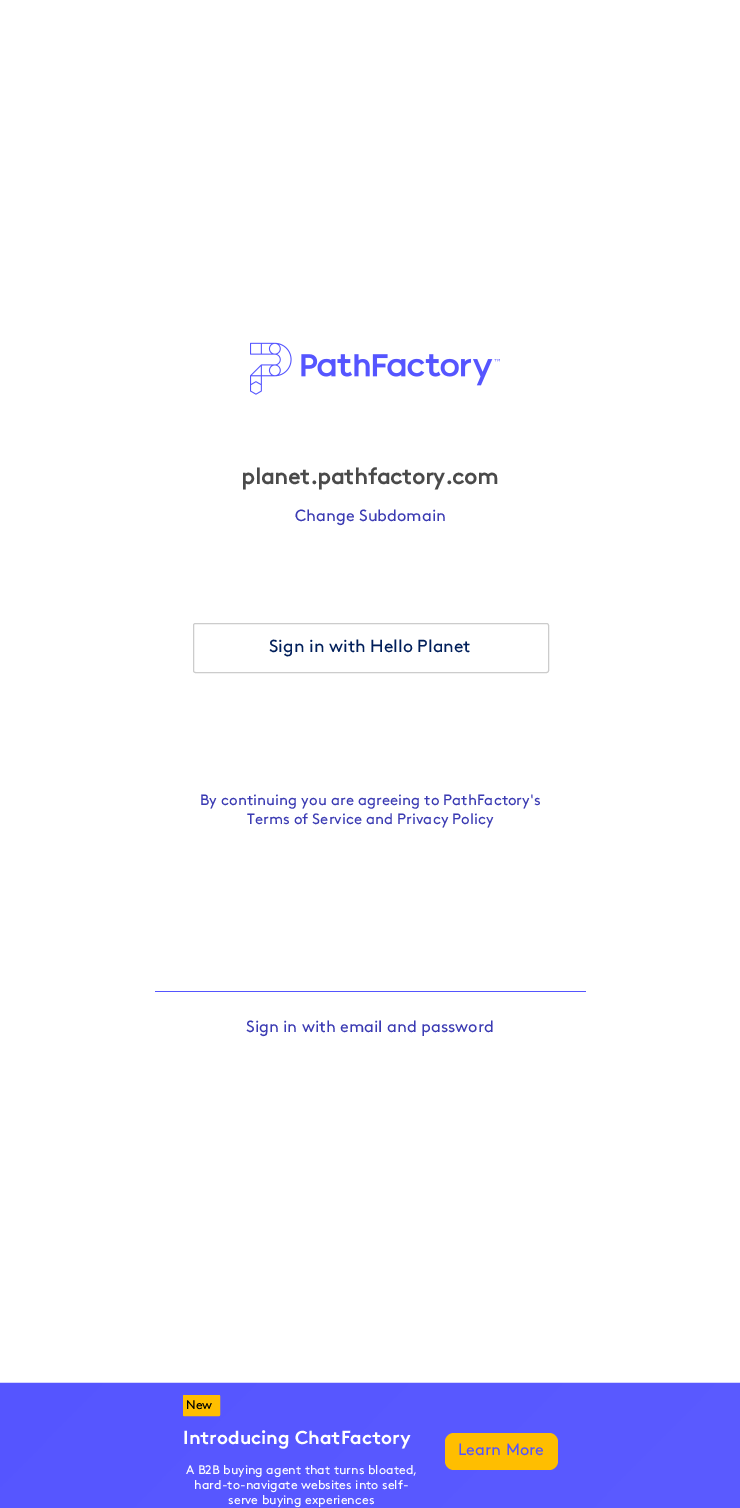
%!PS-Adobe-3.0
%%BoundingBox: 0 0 740 1508
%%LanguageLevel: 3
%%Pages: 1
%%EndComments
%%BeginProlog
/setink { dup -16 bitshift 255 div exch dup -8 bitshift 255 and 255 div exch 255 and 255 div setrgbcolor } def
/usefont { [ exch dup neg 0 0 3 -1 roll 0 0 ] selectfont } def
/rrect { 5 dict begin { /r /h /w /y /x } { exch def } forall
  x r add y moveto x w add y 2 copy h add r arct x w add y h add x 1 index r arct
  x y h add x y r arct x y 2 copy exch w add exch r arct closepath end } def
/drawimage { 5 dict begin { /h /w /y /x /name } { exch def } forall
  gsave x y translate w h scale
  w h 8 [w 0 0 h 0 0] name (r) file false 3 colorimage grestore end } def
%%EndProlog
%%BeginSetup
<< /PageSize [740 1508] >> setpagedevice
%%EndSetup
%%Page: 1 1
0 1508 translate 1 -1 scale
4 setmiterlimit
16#FFFFFF setink
0 0 740 1508 rectfill
(img1.raw) 250 342 250 53 drawimage
/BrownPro-Bold 22.5 usefont
16#4A4A4A setink
241 484 moveto (planet.pathfactory.com) show
/BrownPro-Regular 16.25 usefont
16#3B3BB3 setink
295 521 moveto (Change Subdomain) show
16#CCCCCC setink
193.5 623.5 355 49 2 rrect stroke
/BrownPro-Regular 17.5 usefont
16#001E5A setink
269 652 moveto (Sign in with Hello Planet) show
/BrownPro-Regular 15 usefont
16#3B3BB3 setink
[
    [(By continuing you are agreeing to PathFactory's) 200 805]
    [(Terms of Service) 247 824]
    [(and Privacy Policy) 366 824]
] { aload pop moveto show } forall
16#5555FF setink
155 991 431 1 rectfill
/BrownPro-Regular 16.25 usefont
16#3B3BB3 setink
246 1032 moveto (Sign in with email and password) show
(img2.raw) 0 1382 740 126 drawimage
16#FFBE00 setink
183.5 1395.5 36 20 0.5 rrect gsave fill grestore
stroke
/BrownPro-Regular 12.5 usefont
16#000000 setink
186 1409 moveto (New) show
/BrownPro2-Bold 18.75 usefont
16#FFFFFF setink
183 1444 moveto (Introducing ChatFactory) show
/BrownPro-Regular 12.5 usefont
[
    [(A B2B buying agent that turns bloated,) 186 1474]
    [(hard-to-navigate websites into self-) 194 1489]
    [(serve buying experiences) 228 1504]
] { aload pop moveto show } forall
16#FFBE00 setink
445 1433 113 37 9 rrect fill
/BrownPro-Regular 16.25 usefont
16#5555FF setink
458 1455 moveto (Learn More) show
showpage
%%EOF
